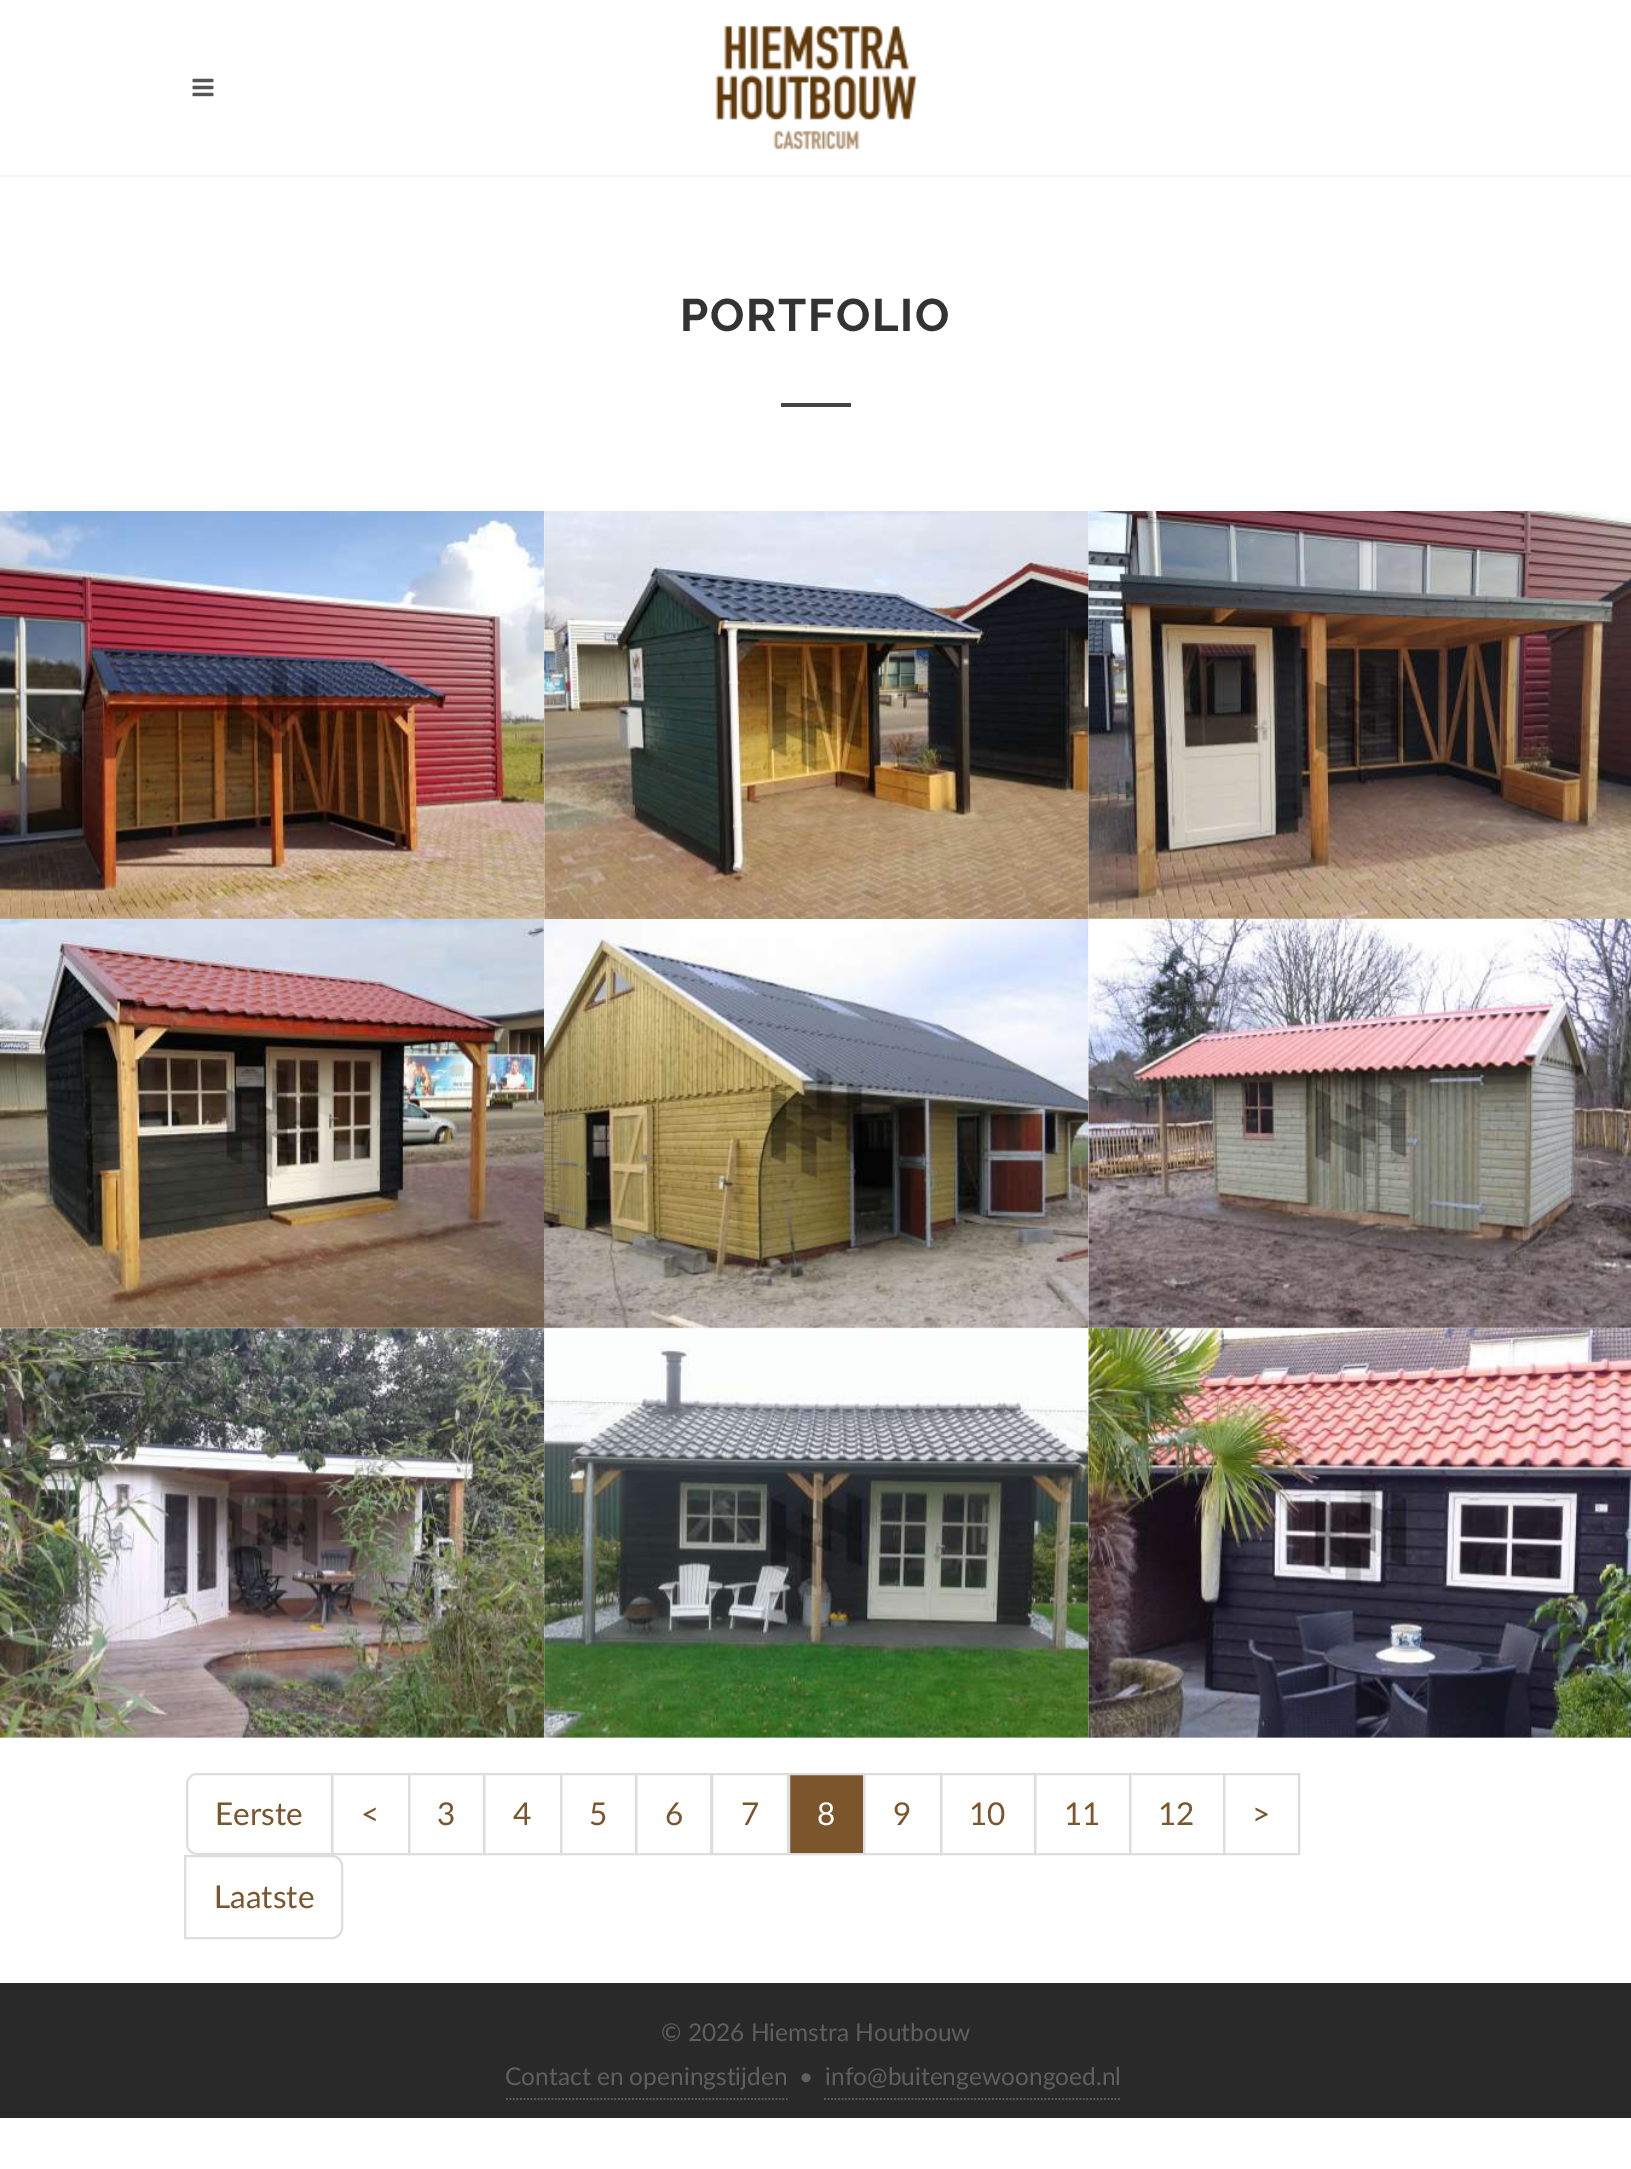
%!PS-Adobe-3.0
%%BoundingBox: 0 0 1631 2169
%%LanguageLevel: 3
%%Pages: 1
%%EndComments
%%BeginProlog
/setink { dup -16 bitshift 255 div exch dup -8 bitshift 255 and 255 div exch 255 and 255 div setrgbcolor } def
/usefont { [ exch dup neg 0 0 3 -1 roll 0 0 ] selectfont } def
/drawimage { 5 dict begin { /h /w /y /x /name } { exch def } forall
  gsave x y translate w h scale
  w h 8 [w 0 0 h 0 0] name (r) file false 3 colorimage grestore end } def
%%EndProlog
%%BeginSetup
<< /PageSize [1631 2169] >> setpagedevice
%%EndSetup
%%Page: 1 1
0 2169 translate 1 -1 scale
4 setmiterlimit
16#FFFFFF setink
0 0 1631 2169 rectfill
16#F5F5F5 setink
0 175 1631 2 rectfill
(img1.raw) 192 78 22 19 drawimage
(img2.raw) 715 25 202 125 drawimage
/Raleway-Bold 45.5 usefont
16#333333 setink
680 331 moveto 1.75 0 (PORTFOLIO) ashow
16#444444 setink
781 403 70 4 rectfill
(img3.raw) 0 511 544 408 drawimage
(img4.raw) 544 511 545 410 drawimage
(img5.raw) 1088 511 543 410 drawimage
(img6.raw) 0 918 545 411 drawimage
(img7.raw) 544 919 545 410 drawimage
(img8.raw) 1088 918 543 411 drawimage
(img9.raw) 0 1328 545 410 drawimage
(img10.raw) 544 1328 545 410 drawimage
(img11.raw) 1088 1328 543 410 drawimage
16#DDDDDD setink
2 setlinewidth
197 1774 moveto 332 1774 lineto 332 1854 lineto 197 1854 lineto 191.5 1854 187 1849.5 187 1844 curveto 187 1784 lineto 187 1778.5 191.5 1774 197 1774 curveto closepath stroke
/Lato-Regular 31.5 usefont
16#7B552C setink
215 1825 moveto (Eerste) show
16#DDDDDD setink
332 1774 77 80 rectstroke
16#7B552C setink
361 1825 moveto (<) show
16#DDDDDD setink
409 1774 75 80 rectstroke
16#7B552C setink
437 1825 moveto (3) show
16#DDDDDD setink
484 1774 77 80 rectstroke
16#7B552C setink
513 1825 moveto (4) show
16#DDDDDD setink
561 1774 75 80 rectstroke
16#7B552C setink
589 1825 moveto (5) show
16#DDDDDD setink
636 1774 75 80 rectstroke
16#7B552C setink
665 1825 moveto (6) show
16#DDDDDD setink
712 1774 76 80 rectstroke
16#7B552C setink
741 1825 moveto (7) show
789 1774 moveto 864 1774 lineto 864 1854 lineto 789 1854 lineto closepath gsave fill grestore
16#DDDDDD setink
stroke
16#FFFFFF setink
817 1825 moveto (8) show
16#DDDDDD setink
864 1774 77 80 rectstroke
16#7B552C setink
893 1825 moveto (9) show
16#DDDDDD setink
941 1774 94 80 rectstroke
16#7B552C setink
969 1825 moveto (10) show
16#DDDDDD setink
1035 1774 95 80 rectstroke
16#7B552C setink
1064 1825 moveto (11) show
16#DDDDDD setink
1130 1774 94 80 rectstroke
16#7B552C setink
1158 1825 moveto (12) show
16#DDDDDD setink
1224 1774 75 80 rectstroke
16#7B552C setink
1252 1825 moveto (>) show
16#DDDDDD setink
185 1856 moveto 332 1856 lineto 337.5 1856 342 1860.5 342 1866 curveto 342 1928 lineto 342 1933.5 337.5 1938 332 1938 curveto 185 1938 lineto closepath stroke
16#7B552C setink
214 1908 moveto (Laatste) show
16#292929 setink
0 1983 1631 135 rectfill
/Lato-Regular 24.5 usefont
16#5F5F5F setink
661 2041 moveto (© 2026 Hiemstra Houtbouw) show
1.8 setlinewidth
[1.75 1.75] 0 setdash
506 2099 moveto 787.5 2099 lineto stroke
505 2085 moveto (Contact en openingstijden) show
799 2085 moveto (•) show
824 2099 moveto 1120 2099 lineto stroke
825 2085 moveto (info@buitengewoongoed.nl) show
showpage
%%EOF
